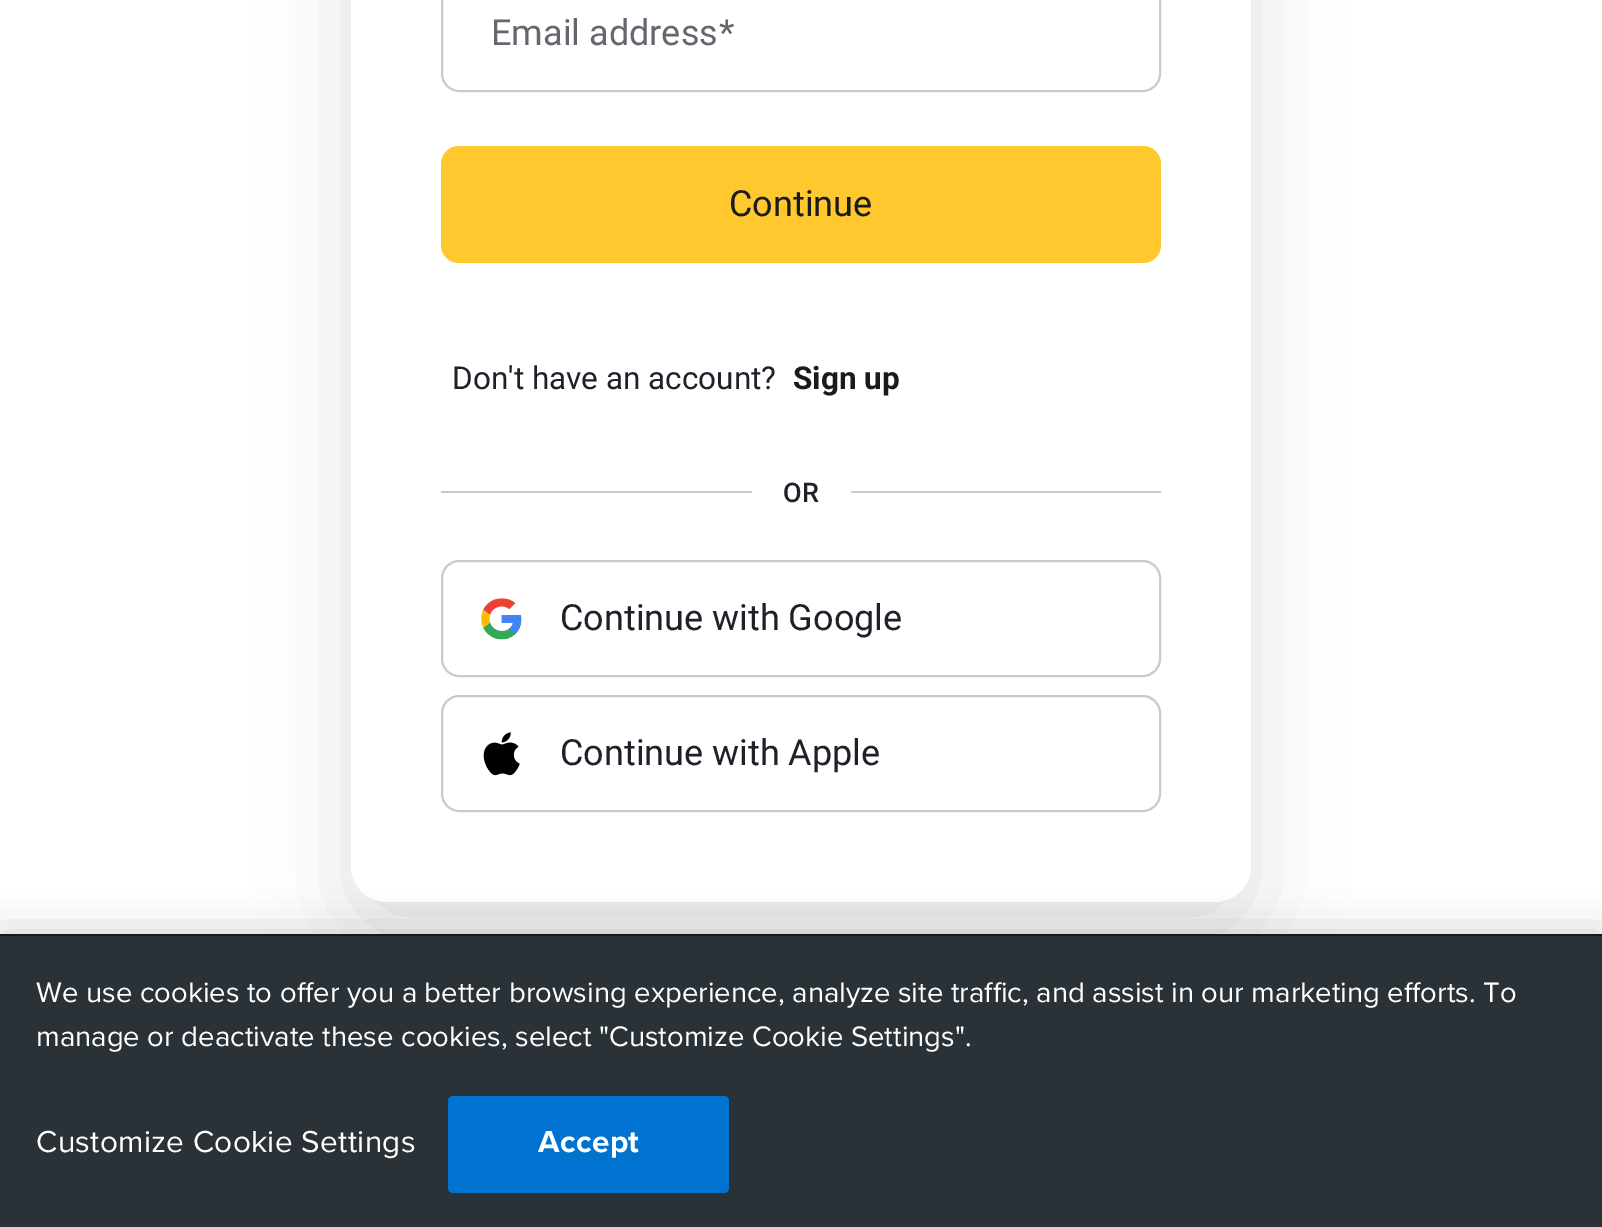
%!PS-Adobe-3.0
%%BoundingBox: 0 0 1602 1227
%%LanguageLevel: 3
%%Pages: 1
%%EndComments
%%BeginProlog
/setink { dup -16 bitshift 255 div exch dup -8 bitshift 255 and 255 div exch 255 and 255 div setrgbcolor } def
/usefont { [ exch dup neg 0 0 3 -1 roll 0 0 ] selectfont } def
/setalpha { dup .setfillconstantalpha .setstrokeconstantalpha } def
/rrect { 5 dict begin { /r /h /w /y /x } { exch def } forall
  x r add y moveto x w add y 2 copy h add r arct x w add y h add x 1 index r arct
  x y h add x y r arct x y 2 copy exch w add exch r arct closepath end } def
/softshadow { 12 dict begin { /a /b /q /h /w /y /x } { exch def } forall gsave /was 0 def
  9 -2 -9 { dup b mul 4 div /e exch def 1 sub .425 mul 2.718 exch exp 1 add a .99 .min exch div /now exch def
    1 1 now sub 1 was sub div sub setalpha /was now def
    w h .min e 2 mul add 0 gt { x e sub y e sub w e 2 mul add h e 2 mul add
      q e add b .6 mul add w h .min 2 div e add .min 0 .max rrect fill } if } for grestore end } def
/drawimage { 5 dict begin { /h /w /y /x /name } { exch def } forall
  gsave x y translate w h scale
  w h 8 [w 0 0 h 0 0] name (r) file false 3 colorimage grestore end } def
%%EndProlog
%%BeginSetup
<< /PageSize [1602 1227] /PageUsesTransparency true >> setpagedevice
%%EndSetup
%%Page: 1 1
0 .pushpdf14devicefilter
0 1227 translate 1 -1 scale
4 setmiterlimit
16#FFFFFF setink
0 0 1602 1227 rectfill
16#000000 setink
351 -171 900 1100 36 45 0.12 softshadow
16#FFFFFF setink
351 -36 900 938 36 rrect fill
16#C9CACE setink
2 setlinewidth
442 -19 718 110 17 rrect stroke
/Roboto-Regular 36 usefont
16#65676E setink
491 45 moveto (Email address) show
719 45 moveto (*) show
16#FFC82E setink
441 146 720 117 18 rrect fill
16#1A1A1A setink
729 216 moveto (Continue) show
/Roboto-Regular 31.5 usefont
16#1E212A setink
452 389 moveto (Don't have an account?) show
/Roboto-Bold 31.5 usefont
16#1A1A1A setink
793 389 moveto (Sign up) show
16#C9CACE setink
441 491 311 2 rectfill
/Roboto-Medium 27 usefont
16#1E212A setink
783 502 moveto (OR) show
16#C9CACE setink
851 491 310 2 rectfill
442 561 718 115 17 rrect stroke
(img1.raw) 481 598 41 42 drawimage
/Roboto-Regular 36 usefont
16#1E212A setink
560 630 moveto (Continue with Google) show
16#C9CACE setink
442 696 718 115 17 rrect stroke
(img2.raw) 483 732 37 44 drawimage
16#1E212A setink
560 765 moveto (Continue with Apple) show
16#000000 setink
0 934 1602 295 0 20 0.2 softshadow
16#2A3137 setink
0 936 1602 291 rectfill
16#15191C setink
0 934 1602 2 rectfill
/ProximaNova-Regular 29.27 usefont
16#FFFFFF setink
36 1002 moveto (We use cookies to offer you a better browsing experience, analyze site traffic, and assist in our marketing efforts. To) show
36 1046 moveto (manage or deactivate these cookies, select "Customize Cookie Settings".) show
/ProximaNova-Regular 31.5 usefont
36 1152 moveto 0.3 0 (Customize Cookie Settings) ashow
16#0072CF setink
448 1096 281 97 5 rrect fill
/ProximaNova-Bold 31.5 usefont
16#FFFFFF setink
538 1152 moveto 0.3 0 (Accept) ashow
.poppdf14devicefilter showpage
%%EOF
